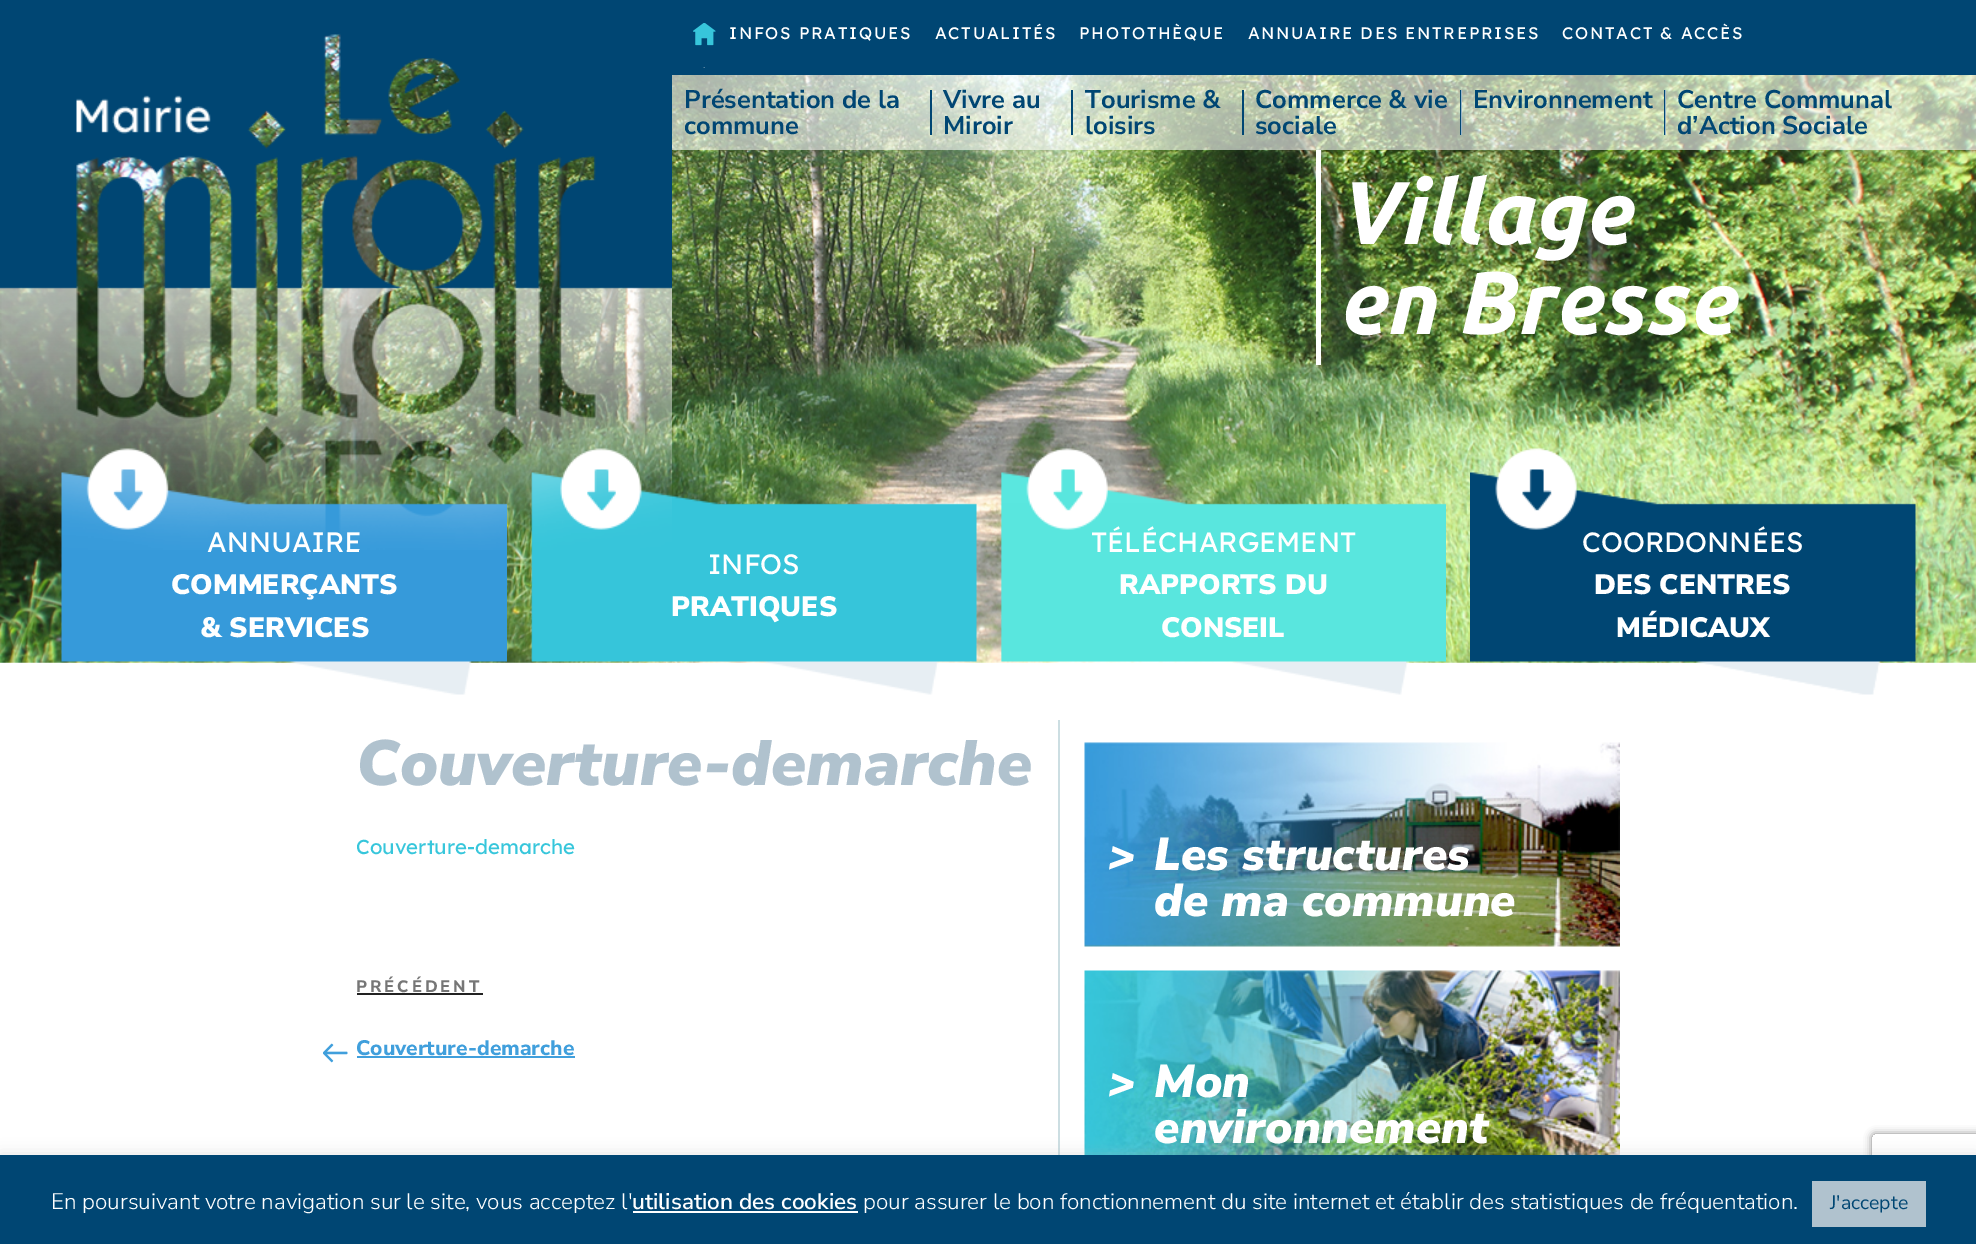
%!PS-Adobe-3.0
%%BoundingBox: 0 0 1976 1244
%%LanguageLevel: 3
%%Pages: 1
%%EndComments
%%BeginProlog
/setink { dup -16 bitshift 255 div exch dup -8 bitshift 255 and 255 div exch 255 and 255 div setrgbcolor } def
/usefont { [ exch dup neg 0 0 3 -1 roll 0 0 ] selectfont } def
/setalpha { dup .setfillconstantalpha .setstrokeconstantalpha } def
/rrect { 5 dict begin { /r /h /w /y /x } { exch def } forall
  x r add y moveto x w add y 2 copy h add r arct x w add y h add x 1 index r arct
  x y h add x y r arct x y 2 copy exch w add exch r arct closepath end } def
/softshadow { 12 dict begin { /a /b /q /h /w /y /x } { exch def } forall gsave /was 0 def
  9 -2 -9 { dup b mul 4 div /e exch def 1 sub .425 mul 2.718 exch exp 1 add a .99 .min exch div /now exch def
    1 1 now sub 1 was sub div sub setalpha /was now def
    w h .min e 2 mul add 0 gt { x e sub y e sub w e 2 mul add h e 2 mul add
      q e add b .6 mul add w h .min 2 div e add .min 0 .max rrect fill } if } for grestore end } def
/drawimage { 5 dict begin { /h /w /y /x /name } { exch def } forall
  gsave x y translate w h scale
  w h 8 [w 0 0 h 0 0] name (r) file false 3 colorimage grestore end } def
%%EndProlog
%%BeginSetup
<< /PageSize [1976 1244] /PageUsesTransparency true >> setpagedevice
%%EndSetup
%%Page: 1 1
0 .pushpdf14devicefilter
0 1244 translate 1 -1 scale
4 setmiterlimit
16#FFFFFF setink
0 0 1976 1244 rectfill
(img3.raw) 0 33 1976 630 drawimage
(img4.raw) 61 448 446 247 drawimage
/LexendDeca-Regular 28 usefont
207 552 moveto (ANNUAIRE) show
(img5.raw) 531 448 446 247 drawimage
(img1.raw) 0 0 672 550 drawimage
16#004673 setink
672 0 1304 75 rectfill
(img2.raw) 693 23 23 45 drawimage
/LexendDeca-Regular 16.75 usefont
16#FFFFFF setink
729 39 moveto 1.7 0 (INFOS PRATIQUES) ashow
935 39 moveto 1.7 0 (ACTUALITÉS) ashow
1079 39 moveto 1.7 0 (PHOTOTHÈQUE) ashow
1248 39 moveto 1.7 0 (ANNUAIRE DES ENTREPRISES) ashow
1562 39 moveto 1.7 0 (CONTACT & ACCÈS) ashow
0.6 setalpha
672 75 260 75 rectfill
/NunitoSans-Bold 25.5 usefont
1 setalpha
16#004673 setink
684 108 moveto (Présentation de la) show
930 90 2 45 rectfill
684 134 moveto (commune) show
0.6 setalpha
16#FFFFFF setink
932 75 141 75 rectfill
1 setalpha
16#004673 setink
943 108 moveto (Vivre au) show
1071 90 2 45 rectfill
943 134 moveto (Miroir) show
0.6 setalpha
16#FFFFFF setink
1073 75 171 75 rectfill
1 setalpha
16#004673 setink
1085 108 moveto (Tourisme &) show
1242 90 2 45 rectfill
1085 134 moveto (loisirs) show
0.6 setalpha
16#FFFFFF setink
1244 75 217 75 rectfill
1 setalpha
16#004673 setink
1255 108 moveto (Commerce & vie) show
1460 90 2 45 rectfill
1255 134 moveto (sociale) show
0.6 setalpha
16#FFFFFF setink
1461 75 204 75 rectfill
1 setalpha
16#004673 setink
1473 108 moveto (Environnement) show
1664 90 2 45 rectfill
0.6 setalpha
16#FFFFFF setink
1665 75 311 75 rectfill
1 setalpha
16#004673 setink
1677 108 moveto (Centre Communal) show
1677 134 moveto (d’Action Sociale) show
16#FFFFFF setink
1316 150 5 215 rectfill
/Ubuntu-BoldItalic 89.25 usefont
1337 244 moveto (Village) show
1337 334 moveto (en Bresse) show
/NunitoSans-Black 28 usefont
171 594 moveto (COMMERÇANTS) show
200 637 moveto (& SERVICES) show
/LexendDeca-Regular 28 usefont
708 574 moveto (INFOS) show
/NunitoSans-Black 28 usefont
671 616 moveto (PRATIQUES) show
(img6.raw) 1000 448 446 247 drawimage
/LexendDeca-Regular 28 usefont
1091 552 moveto (TÉLÉCHARGEMENT) show
/NunitoSans-Black 28 usefont
1119 594 moveto (RAPPORTS DU) show
1161 637 moveto (CONSEIL) show
(img7.raw) 1470 448 446 247 drawimage
/LexendDeca-Regular 28 usefont
1582 552 moveto (COORDONNÉES) show
/NunitoSans-Black 28 usefont
1594 594 moveto (DES CENTRES) show
1616 637 moveto (MÉDICAUX) show
16#CCDEE2 setink
1058 720 2 435 rectfill
/NunitoSans-BlackItalic 63.75 usefont
16#B0C2CE setink
356 785 moveto (Couverture-demarche) show
/LexendDeca-Regular 20.4 usefont
16#37C6DB setink
356 854 moveto (Couverture-demarche) show
/NunitoSans-ExtraBold 16.5 usefont
16#767676 setink
356 992 moveto 3 0 (PRÉCÉDENT) ashow
16#222222 setink
357 993 126 2 rectfill
(img8.raw) 323 1043 25 20 drawimage
/NunitoSans-ExtraBold 21 usefont
16#409FDC setink
356 1055 moveto (Couverture-demarche) show
357 1056 218 2 rectfill
(img9.raw) 1084 742 536 205 drawimage
/NunitoSans-BlackItalic 46 usefont
16#FFFFFF setink
[
    [(>) 1108 871]
    [(Les structures) 1154 870]
    [(de ma commune) 1154 916]
] { aload pop moveto show } forall
(img10.raw) 1084 970 536 185 drawimage
[
    [(>) 1108 1098]
    [(Mon) 1154 1097]
    [(environnement) 1154 1143]
] { aload pop moveto show } forall
16#ACABAB setink
0 1154 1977 90 0 7.5 0.3 softshadow
gsave
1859 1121 moveto 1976 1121 lineto 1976 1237 lineto 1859 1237 lineto closepath 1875 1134 moveto 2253 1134 lineto 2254.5 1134 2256 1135.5 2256 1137 curveto 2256 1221 lineto 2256 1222.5 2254.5 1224 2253 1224 curveto 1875 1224 lineto 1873.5 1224 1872 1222.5 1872 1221 curveto 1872 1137 lineto 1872 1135.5 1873.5 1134 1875 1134 curveto closepath eoclip newpath
16#808080 setink
1872 1134 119 90 3 4 1 softshadow
grestore
16#004673 setink
0 1155 1976 89 rectfill
/NunitoSans-Light 22.5 usefont
16#FFFFFF setink
51 1209 moveto (En poursuivant votre navigation sur le site, vous acceptez l') show
/NunitoSans-SemiBold 22.5 usefont
632 1209 moveto (utilisation des cookies) show
633 1211 225 2 rectfill
/NunitoSans-Light 22.5 usefont
863 1209 moveto (pour assurer le bon fonctionnement du site internet et établir des statistiques de fréquentation.) show
16#B0C2CE setink
1812 1181 114 46 rectfill
/NunitoSans-Regular 19.5 usefont
16#004673 setink
1830 1209 moveto (J'accepte) show
.poppdf14devicefilter showpage
%%EOF
